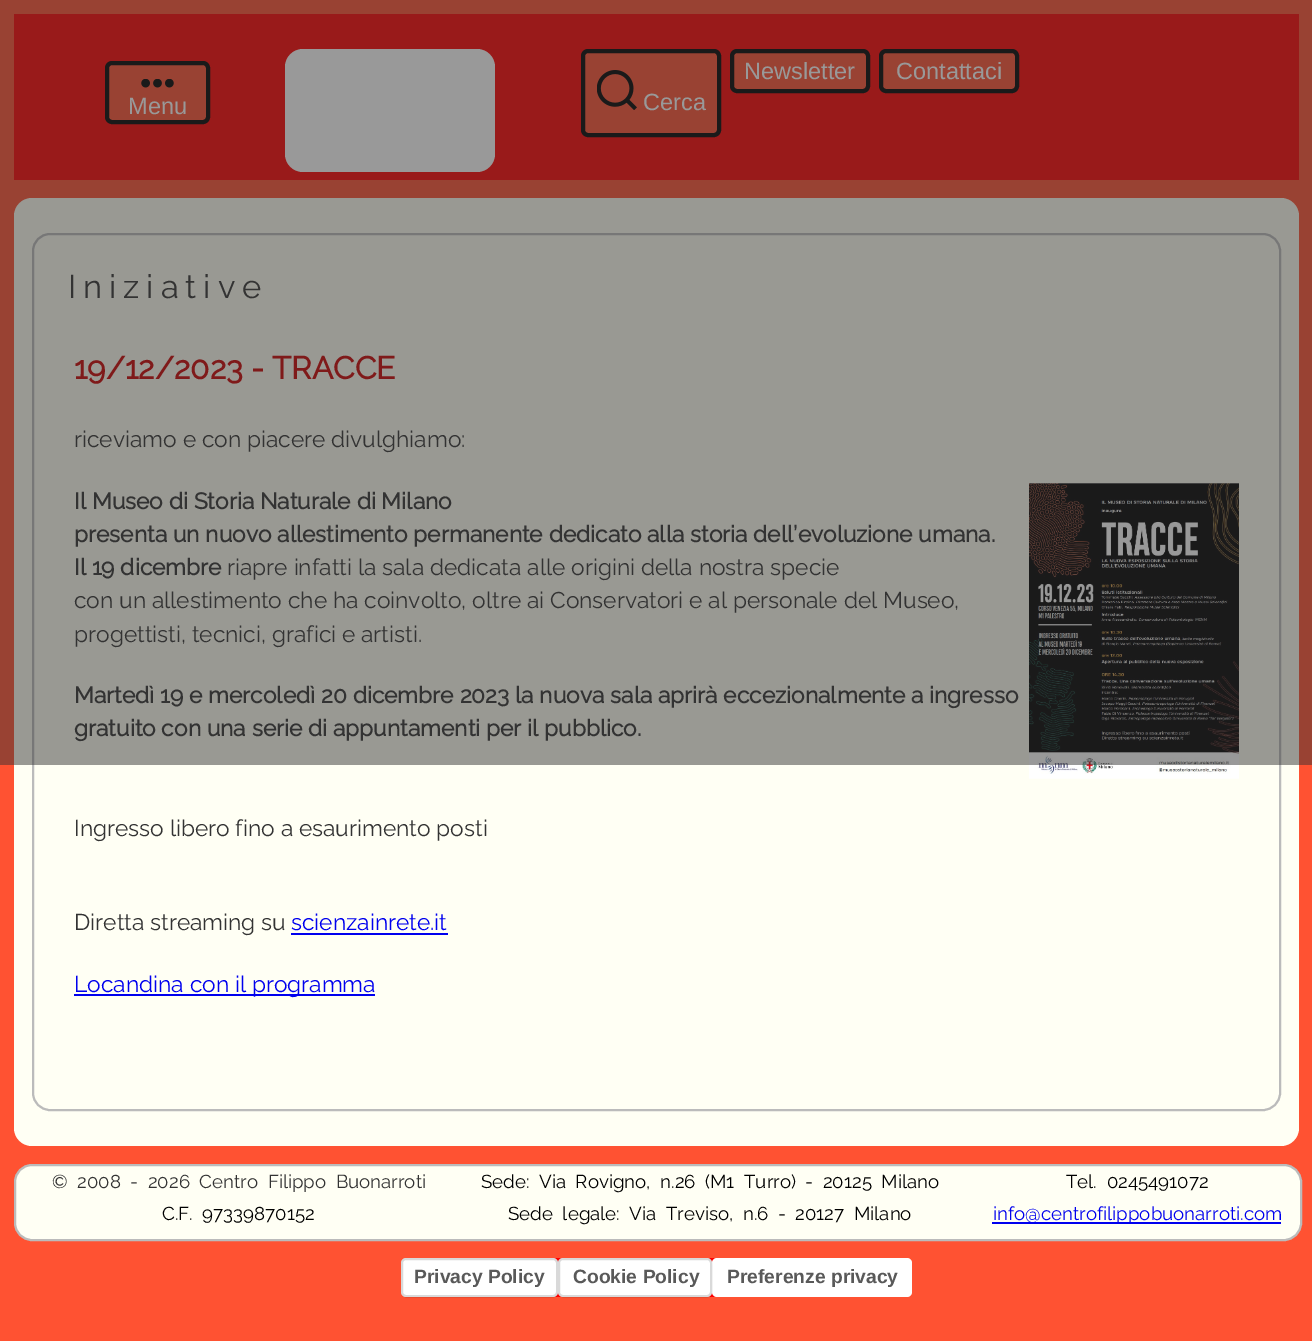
%!PS-Adobe-3.0
%%BoundingBox: 0 0 1312 1341
%%LanguageLevel: 3
%%Pages: 1
%%EndComments
%%BeginProlog
/setink { dup -16 bitshift 255 div exch dup -8 bitshift 255 and 255 div exch 255 and 255 div setrgbcolor } def
/usefont { [ exch dup neg 0 0 3 -1 roll 0 0 ] selectfont } def
/setalpha { dup .setfillconstantalpha .setstrokeconstantalpha } def
/rrect { 5 dict begin { /r /h /w /y /x } { exch def } forall
  x r add y moveto x w add y 2 copy h add r arct x w add y h add x 1 index r arct
  x y h add x y r arct x y 2 copy exch w add exch r arct closepath end } def
/softshadow { 12 dict begin { /a /b /q /h /w /y /x } { exch def } forall gsave /was 0 def
  9 -2 -9 { dup b mul 4 div /e exch def 1 sub .425 mul 2.718 exch exp 1 add a .99 .min exch div /now exch def
    1 1 now sub 1 was sub div sub setalpha /was now def
    w h .min e 2 mul add 0 gt { x e sub y e sub w e 2 mul add h e 2 mul add
      q e add b .6 mul add w h .min 2 div e add .min 0 .max rrect fill } if } for grestore end } def
/drawimage { 5 dict begin { /h /w /y /x /name } { exch def } forall
  gsave x y translate w h scale
  w h 8 [w 0 0 h 0 0] name (r) file false 3 colorimage grestore end } def
%%EndProlog
%%BeginSetup
<< /PageSize [1312 1341] /PageUsesTransparency true >> setpagedevice
%%EndSetup
%%Page: 1 1
0 .pushpdf14devicefilter
0 1341 translate 1 -1 scale
4 setmiterlimit
16#FF5232 setink
0 0 1312 1341 rectfill
16#FF0000 setink
14 14 1285 166 rectfill
16#FF5232 setink
107 63 101 59 5 rrect gsave fill grestore
16#000000 setink
4 setlinewidth
stroke
(img1.raw) 141 79 33 9 drawimage
/LiberationSans-Regular 23.5 usefont
16#FFFFFF setink
128 114 moveto (Menu) show
285 49 210 123 18 rrect fill
16#FF5232 setink
732 51 136 40 5 rrect gsave fill grestore
16#000000 setink
stroke
16#FFFFFF setink
744 79 moveto (Newsletter) show
16#FF5232 setink
881 51 136 40 5 rrect gsave fill grestore
16#000000 setink
stroke
16#FFFFFF setink
896 79 moveto (Contattaci) show
16#FF5232 setink
583 51 136 84 5 rrect gsave fill grestore
16#000000 setink
stroke
(img2.raw) 597 70 40 40 drawimage
16#FFFFFF setink
643 110 moveto (Cerca) show
16#FFFFF4 setink
14 198 1285 948 18 rrect fill
16#BBBBBB setink
2 setlinewidth
33 234 1247 876 17 rrect stroke
/Raleway-Thin 32.75 usefont
16#333333 setink
68 298 moveto 7 0 (Iniziative) ashow
/Raleway-Bold 31.5 usefont
16#CC0000 setink
74 379 moveto (19/12/2023 - TRACCE) show
/Raleway-Thin 22.75 usefont
16#333333 setink
74 447 moveto (riceviamo e con piacere divulghiamo:) show
/Raleway-Bold 22.75 usefont
[
    [(Il Museo di Storia Naturale di Milano) 74 509]
    [(presenta un nuovo allestimento permanente dedicato alla storia dell’evoluzione umana.) 74 542]
    [(Il 19 dicembre) 74 575]
] { aload pop moveto show } forall
/Raleway-Thin 22.75 usefont
[
    [(riapre infatti la sala dedicata alle origini della nostra specie) 227 575]
    [(con un allestimento che ha coinvolto, oltre ai Conservatori e al personale del Museo,) 74 608]
    [(progettisti, tecnici, grafici e artisti.) 74 642]
] { aload pop moveto show } forall
(img3.raw) 1029 483 210 296 drawimage
/Raleway-Bold 22.75 usefont
74 703 moveto (Martedì 19 e mercoledì 20 dicembre 2023 la nuova sala aprirà eccezionalmente a ingresso) show
74 736 moveto (gratuito con una serie di appuntamenti per il pubblico.) show
0.5 setalpha
0 0 1312 765 rectfill
/Raleway-Thin 22.75 usefont
1 setalpha
74 836 moveto (Ingresso libero fino a esaurimento posti) show
74 930 moveto (Diretta streaming su) show
16#0000EE setink
291 930 moveto (scienzainrete.it) show
291 933 157 2 rectfill
74 994 301 2 rectfill
74 992 moveto (Locandina con il programma) show
16#FFFFF4 setink
15 1165 1286 75 17 rrect gsave fill grestore
16#BBBBBB setink
stroke
/Raleway-Thin 18.7 usefont
16#333333 setink
52 1188 moveto 4.75 0 32 (© 2008 - 2026 Centro Filippo Buonarroti) widthshow
16#000000 setink
162 1220 moveto 4.75 0 32 (C.F. 97339870152) widthshow
481 1188 moveto 4.75 0 32 (Sede: Via Rovigno, n.26 \(M1 Turro\) - 20125 Milano) widthshow
508 1220 moveto 4.75 0 32 (Sede legale: Via Treviso, n.6 - 20127 Milano) widthshow
1066 1188 moveto 4.75 0 32 (Tel. 0245491072) widthshow
16#0000EE setink
992 1222 289 2 rectfill
993 1220 moveto (info@centrofilippobuonarroti.com) show
16#FF0000 setink
401 1258 511 39 18 rrect fill
16#000000 setink
403 1262 154 35 4 1 0.15 softshadow
16#FFFFFF setink
401 1258 157 39 5 rrect fill
0.15 setalpha
16#000000 setink
402 1259 155 37 4 rrect stroke
/LiberationSans-Bold 19.25 usefont
1 setalpha
16#595959 setink
414 1283 moveto (Privacy Policy) show
16#FFFFFF setink
712 1258 200 39 5 rrect fill
16#000000 setink
560 1262 151 35 4 1 0.15 softshadow
16#FFFFFF setink
558 1258 154 39 5 rrect fill
0.15 setalpha
16#000000 setink
559 1259 152 37 4 rrect stroke
1 setalpha
16#595959 setink
573 1283 moveto (Cookie Policy) show
727 1283 moveto (Preferenze privacy) show
.poppdf14devicefilter showpage
%%EOF
